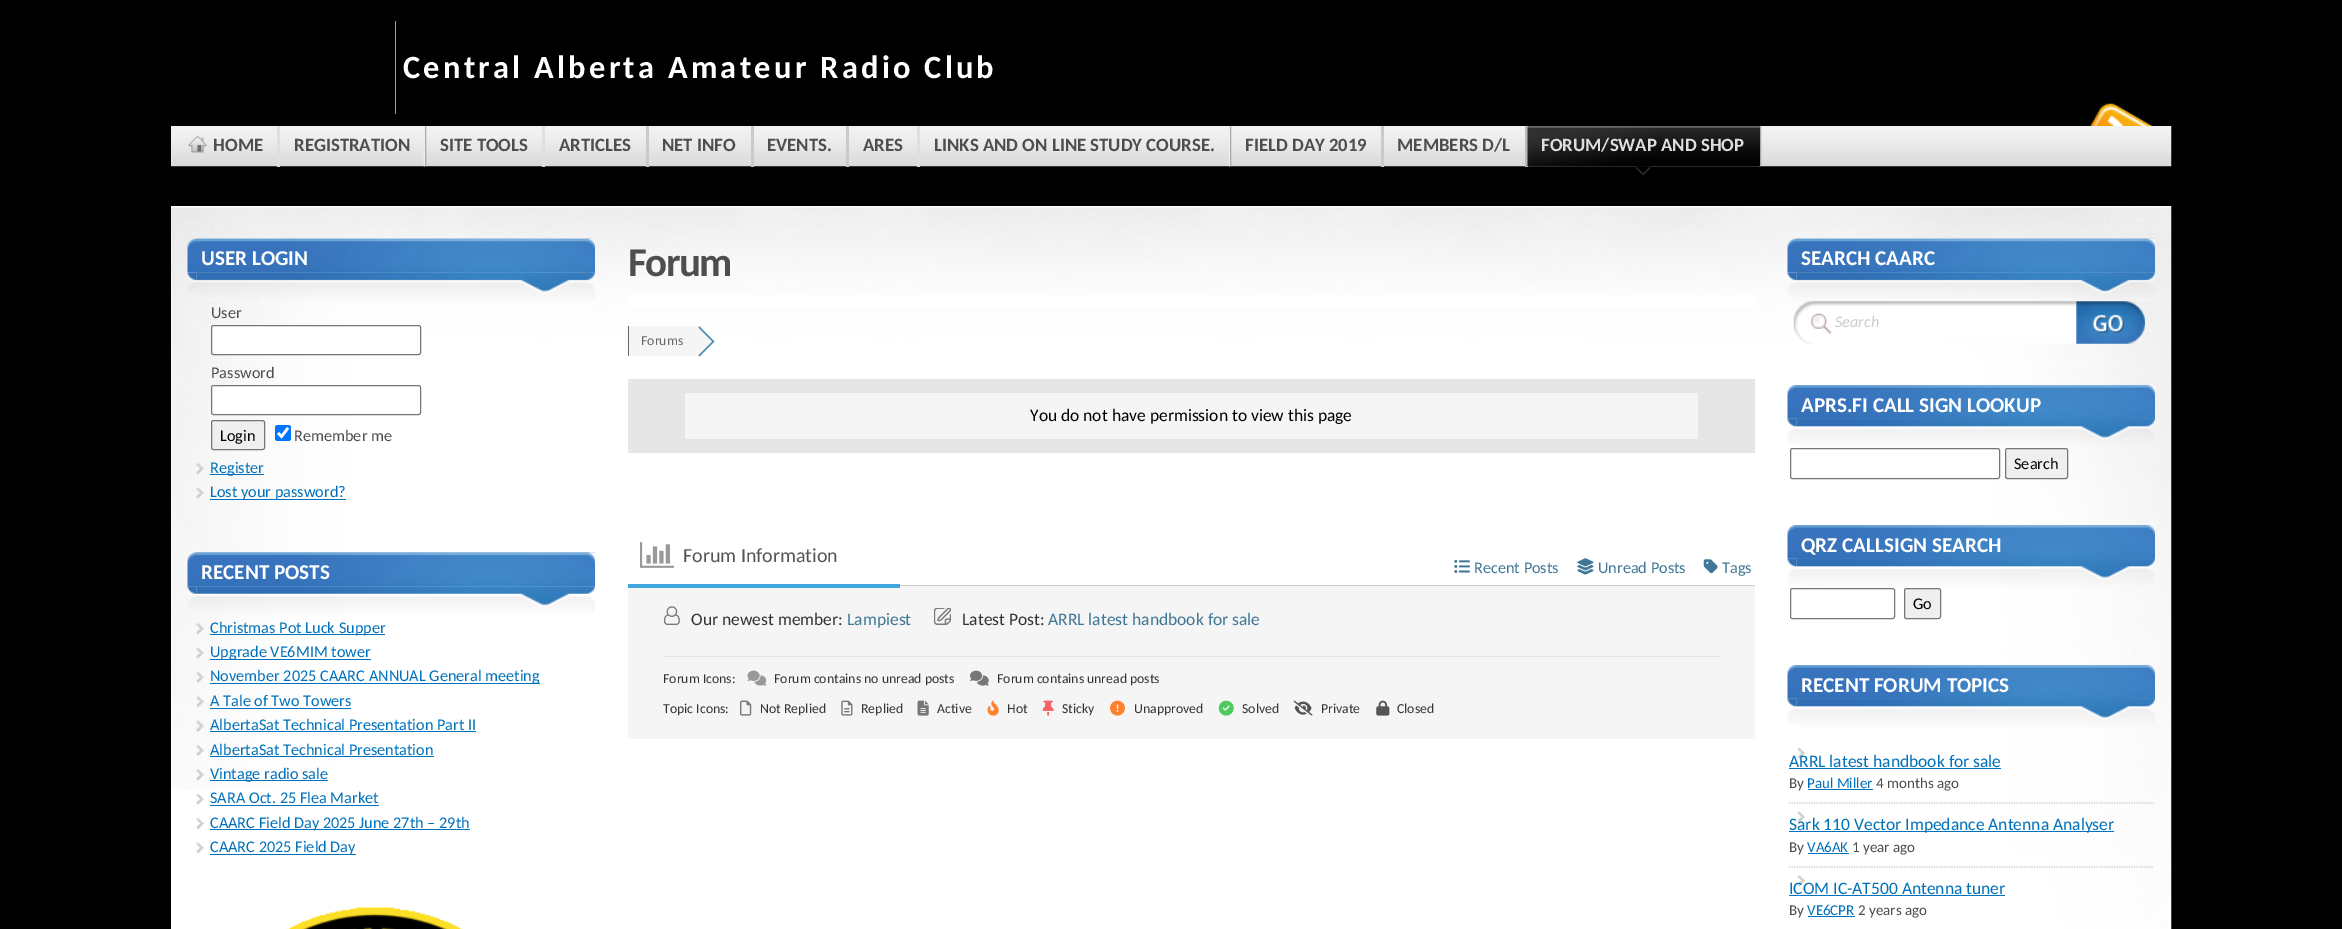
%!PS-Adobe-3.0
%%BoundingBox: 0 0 2342 929
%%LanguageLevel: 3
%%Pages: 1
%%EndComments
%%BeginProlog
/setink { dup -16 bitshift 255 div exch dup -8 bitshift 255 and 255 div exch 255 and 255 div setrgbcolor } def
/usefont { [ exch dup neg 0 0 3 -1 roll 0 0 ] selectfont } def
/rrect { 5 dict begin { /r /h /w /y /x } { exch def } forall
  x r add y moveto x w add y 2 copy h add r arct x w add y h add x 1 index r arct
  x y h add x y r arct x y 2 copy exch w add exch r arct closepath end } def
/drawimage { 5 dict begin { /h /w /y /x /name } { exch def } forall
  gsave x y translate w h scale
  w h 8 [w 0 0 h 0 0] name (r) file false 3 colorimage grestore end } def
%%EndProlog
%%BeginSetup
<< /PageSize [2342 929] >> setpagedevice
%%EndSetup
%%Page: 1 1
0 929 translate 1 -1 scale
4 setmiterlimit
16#000000 setink
0 0 2342 929 rectfill
16#999999 setink
395 21 1 93 rectfill
/Carlito-Bold 32.5 usefont
16#FFFFFF setink
403 78 moveto 3.25 0 (Central Alberta Amateur Radio Club) ashow
(img1.raw) 2090 103 63 23 drawimage
16#EEEEEE setink
171 126 2000 40 rectfill
(img2.raw) 171 126 2001 41 drawimage
16#DFDFDF setink
277 126 3 41 rectfill
(img3.raw) 188 136 19 17 drawimage
/Carlito-Bold 18.75 usefont
16#4E4E4E setink
213 151 moveto (HOME) show
(img4.raw) 423 126 4 41 drawimage
294 151 moveto (REGISTRATION) show
16#DFDFDF setink
542 126 3 41 rectfill
16#4E4E4E setink
440 151 moveto (SITE TOOLS) show
16#CACACA setink
646 126 3 41 rectfill
16#4E4E4E setink
559 151 moveto (ARTICLES) show
16#CACACA setink
751 126 3 41 rectfill
16#4E4E4E setink
662 151 moveto (NET INFO) show
16#CACACA setink
846 126 3 41 rectfill
16#4E4E4E setink
767 151 moveto (EVENTS.) show
16#DFDFDF setink
917 126 3 41 rectfill
16#4E4E4E setink
863 151 moveto (ARES) show
(img4.raw) 1228 126 4 41 drawimage
934 151 moveto (LINKS AND ON LINE STUDY COURSE.) show
16#CACACA setink
1381 126 3 41 rectfill
16#4E4E4E setink
1245 151 moveto (FIELD DAY 2019) show
16#BABABA setink
1525 126 3 41 rectfill
16#4E4E4E setink
1397 151 moveto (MEMBERS D/L) show
(img4.raw) 1758 126 4 41 drawimage
(img5.raw) 1527 126 233 41 drawimage
16#DEDEDE setink
1541 151 moveto (FORUM/SWAP AND SHOP) show
(img6.raw) 1636 166 15 9 drawimage
16#FFFFFF setink
171 206 2000 723 rectfill
(img7.raw) 296 206 1876 723 drawimage
(img8.raw) 171 207 278 582 drawimage
(img9.raw) 187 238 408 35 drawimage
(img10.raw) 196 238 399 35 drawimage
/Carlito-Bold 21.1 usefont
201 265 moveto (USER LOGIN) show
(img12.raw) 196 272 399 29 drawimage
(img11.raw) 187 272 10 20 drawimage
/Carlito-Regular 16.25 usefont
16#4E4E4E setink
211 318 moveto (User) show
16#FFFFFF setink
211.5 325.5 209 29 2 rrect gsave fill grestore
16#767676 setink
stroke
16#4E4E4E setink
211 378 moveto (Password) show
16#FFFFFF setink
211.5 385.5 209 29 2 rrect gsave fill grestore
16#767676 setink
stroke
16#EFEFEF setink
211.5 420.5 53 29 2 rrect gsave fill grestore
16#767676 setink
stroke
16#000000 setink
220 441 moveto (Login) show
16#0075FF setink
275 425 16 16 2.5 rrect fill
16#FFFFFF setink
2.6 setlinewidth
278 433 moveto 281.5 436.5 lineto 288 428 lineto stroke
16#4E4E4E setink
294 441 moveto (Remember me) show
(img13.raw) 196 462 8 13 drawimage
16#0071BB setink
210 474 54 1 rectfill
210 473 moveto (Register) show
(img14.raw) 196 487 8 12 drawimage
210 499 136 1 rectfill
210 497 moveto (Lost your password?) show
(img15.raw) 187 552 408 35 drawimage
(img16.raw) 196 552 399 35 drawimage
/Carlito-Bold 21.1 usefont
16#FFFFFF setink
201 579 moveto (RECENT POSTS) show
(img18.raw) 196 586 399 29 drawimage
(img17.raw) 187 586 10 23 drawimage
(img19.raw) 196 622 8 13 drawimage
16#0071BB setink
210 634 175 1 rectfill
/Carlito-Regular 16.25 usefont
210 633 moveto (Christmas Pot Luck Supper) show
(img20.raw) 196 647 8 12 drawimage
210 659 161 1 rectfill
210 657 moveto (Upgrade VE6MIM tower) show
(img21.raw) 196 671 8 12 drawimage
210 683 330 1 rectfill
210 681 moveto (November 2025 CAARC ANNUAL General meeting) show
(img22.raw) 196 696 8 11 drawimage
210 706 moveto (A Tale of Two Towers) show
210 708 141 1 rectfill
(img23.raw) 196 720 8 12 drawimage
210 730 moveto (AlbertaSat Technical Presentation Part II) show
210 731 266 1 rectfill
(img24.raw) 196 744 8 12 drawimage
210 755 moveto (AlbertaSat Technical Presentation) show
210 756 224 1 rectfill
(img25.raw) 196 769 8 12 drawimage
210 780 118 1 rectfill
210 779 moveto (Vintage radio sale) show
(img26.raw) 196 793 8 12 drawimage
210 803 moveto (SARA Oct. 25 Flea Market) show
210 805 169 1 rectfill
(img27.raw) 196 817 8 13 drawimage
210 829 260 1 rectfill
210 828 moveto (CAARC Field Day 2025 June 27th – 29th) show
(img28.raw) 196 842 8 12 drawimage
210 854 146 1 rectfill
210 852 moveto (CAARC 2025 Field Day) show
(img29.raw) 287 907 176 22 drawimage
/Carlito-Bold 41 usefont
16#4E4E4E setink
628 276 moveto -1.5 0 (Forum) ashow
[
    [628 295 1127 12 16#FFFFFF]
    [629 326 74 30 16#F5F5F5]
    [628 326 1 30 16#666666]
] { aload pop setink rectfill } forall
/Carlito-Regular 13.75 usefont
641 345 moveto (Forums) show
16#4A8EB3 setink
699.5 326.5 moveto 698 328 lineto 712 341.5 lineto 698 355 lineto 699.5 356.5 lineto 714.5 341.5 lineto closepath fill
16#F5F5F5 setink
697 326.5 moveto 712 341.5 lineto 697 356.5 lineto 682 341.5 lineto closepath fill
16#E6E6E6 setink
628 379 1127 74 rectfill
16#F5F5F5 setink
685 393 1013 46 rectfill
/Carlito-Regular 17.5 usefont
16#000000 setink
1030 421 moveto (You do not have permission to view this page) show
[
    [900 585 855 1 16#CCCCCC]
    [628 586 1127 153 16#F5F5F5]
    [628 584 272 4 16#43A6DF]
] { aload pop setink rectfill } forall
(img30.raw) 640 542 34 26 drawimage
/Carlito-Regular 20 usefont
16#555555 setink
683 562 moveto (Forum Information) show
(img31.raw) 1454 559 16 14 drawimage
/Carlito-Regular 16.25 usefont
16#3F7796 setink
1474 573 moveto (Recent Posts) show
(img32.raw) 1577 558 17 17 drawimage
1598 573 moveto (Unread Posts) show
(img33.raw) 1703 559 15 15 drawimage
1722 573 moveto (Tags) show
(img34.raw) 663 606 17 19 drawimage
/Carlito-Regular 17.5 usefont
16#333333 setink
691 625 moveto (Our newest member:) show
16#3F7796 setink
847 625 moveto (Lampiest) show
(img35.raw) 934 608 17 17 drawimage
16#333333 setink
962 625 moveto (Latest Post:) show
16#3F7796 setink
1048 625 moveto (ARRL latest handbook for sale) show
16#E6E6E6 setink
663 656 1057 1 rectfill
/Carlito-Regular 13.75 usefont
16#333333 setink
663 683 moveto (Forum Icons:) show
(img36.raw) 747 670 20 16 drawimage
774 683 moveto (Forum contains no unread posts) show
(img37.raw) 970 670 19 16 drawimage
997 683 moveto (Forum contains unread posts) show
663 713 moveto (Topic Icons:) show
(img38.raw) 740 700 12 16 drawimage
760 713 moveto (Not Replied) show
(img39.raw) 841 700 12 16 drawimage
861 713 moveto (Replied) show
(img40.raw) 917 700 12 16 drawimage
937 713 moveto (Active) show
(img41.raw) 987 700 12 16 drawimage
1007 713 moveto (Hot) show
(img42.raw) 1042 700 12 16 drawimage
1062 713 moveto (Sticky) show
(img43.raw) 1110 700 15 16 drawimage
1134 713 moveto (Unapproved) show
(img44.raw) 1218 700 16 16 drawimage
1242 713 moveto (Solved) show
(img45.raw) 1293 700 20 16 drawimage
1321 713 moveto (Private) show
(img46.raw) 1376 700 14 16 drawimage
1397 713 moveto (Closed) show
(img47.raw) 1787 238 368 35 drawimage
(img48.raw) 1796 238 359 35 drawimage
/Carlito-Bold 21.1 usefont
16#FFFFFF setink
1801 265 moveto (SEARCH CAARC) show
(img50.raw) 1796 272 359 29 drawimage
(img49.raw) 1787 272 10 25 drawimage
(img51.raw) 1793 301 284 43 drawimage
/Carlito-Italic 16.25 usefont
16#CCCCCC setink
1835 327 moveto (Search) show
(img52.raw) 2076 301 69 43 drawimage
(img53.raw) 1787 385 368 34 drawimage
(img54.raw) 1796 385 359 34 drawimage
/Carlito-Bold 21.1 usefont
16#FFFFFF setink
1801 412 moveto (APRS.FI CALL SIGN LOOKUP) show
(img56.raw) 1796 418 359 30 drawimage
(img55.raw) 1787 418 10 26 drawimage
16#767676 setink
1 setlinewidth
1790.5 448.5 209 30 2 rrect stroke
16#EFEFEF setink
2005.5 448.5 62 30 2 rrect gsave fill grestore
16#767676 setink
stroke
/Carlito-Regular 16.25 usefont
16#000000 setink
2014 469 moveto (Search) show
(img57.raw) 1787 525 368 34 drawimage
(img58.raw) 1796 525 359 34 drawimage
/Carlito-Bold 21.1 usefont
16#FFFFFF setink
1801 552 moveto (QRZ CALLSIGN SEARCH) show
(img59.raw) 1796 558 359 30 drawimage
(img55.raw) 1787 558 10 26 drawimage
16#767676 setink
1790.5 588.5 104 30 2 rrect stroke
16#EFEFEF setink
1904.5 588.5 36 30 2 rrect gsave fill grestore
16#767676 setink
stroke
/Carlito-Regular 16.25 usefont
16#000000 setink
1913 609 moveto (Go) show
(img60.raw) 1787 665 368 34 drawimage
(img61.raw) 1796 665 359 34 drawimage
/Carlito-Bold 21.1 usefont
16#FFFFFF setink
1801 692 moveto (RECENT FORUM TOPICS) show
(img62.raw) 1796 698 359 30 drawimage
(img55.raw) 1787 698 10 26 drawimage
(img63.raw) 1797 747 8 12 drawimage
16#CCCCCC setink
1.2 setlinewidth
[1.25 1.25] 0 setdash
1789 803 moveto 2154 803 lineto stroke
/Carlito-Regular 17.5 usefont
16#0071BB setink
1789 767 moveto (ARRL latest handbook for sale) show
1789 768 212 1 rectfill
/Carlito-Regular 15 usefont
16#4E4E4E setink
1789 788 moveto (By) show
16#0071BB setink
1807 788 moveto (Paul Miller) show
1808 789 65 1 rectfill
16#4E4E4E setink
1876 788 moveto (4 months ago) show
(img64.raw) 1797 811 9 12 drawimage
16#CCCCCC setink
1789 867 moveto 2154 867 lineto stroke
16#0071BB setink
1789 831 325 1 rectfill
/Carlito-Regular 17.5 usefont
1789 830 moveto (Sark 110 Vector Impedance Antenna Analyser) show
/Carlito-Regular 15 usefont
16#4E4E4E setink
1789 852 moveto (By) show
16#0071BB setink
1807 852 moveto (VA6AK) show
1808 853 41 1 rectfill
16#4E4E4E setink
1852 852 moveto (1 year ago) show
(img65.raw) 1797 875 9 12 drawimage
/Carlito-Regular 17.5 usefont
16#0071BB setink
1789 894 moveto (ICOM IC-AT500 Antenna tuner) show
1789 895 216 1 rectfill
/Carlito-Regular 15 usefont
16#4E4E4E setink
1789 915 moveto (By) show
16#0071BB setink
1807 915 moveto (VE6CPR) show
1808 916 47 1 rectfill
16#4E4E4E setink
1858 915 moveto (2 years ago) show
showpage
%%EOF
